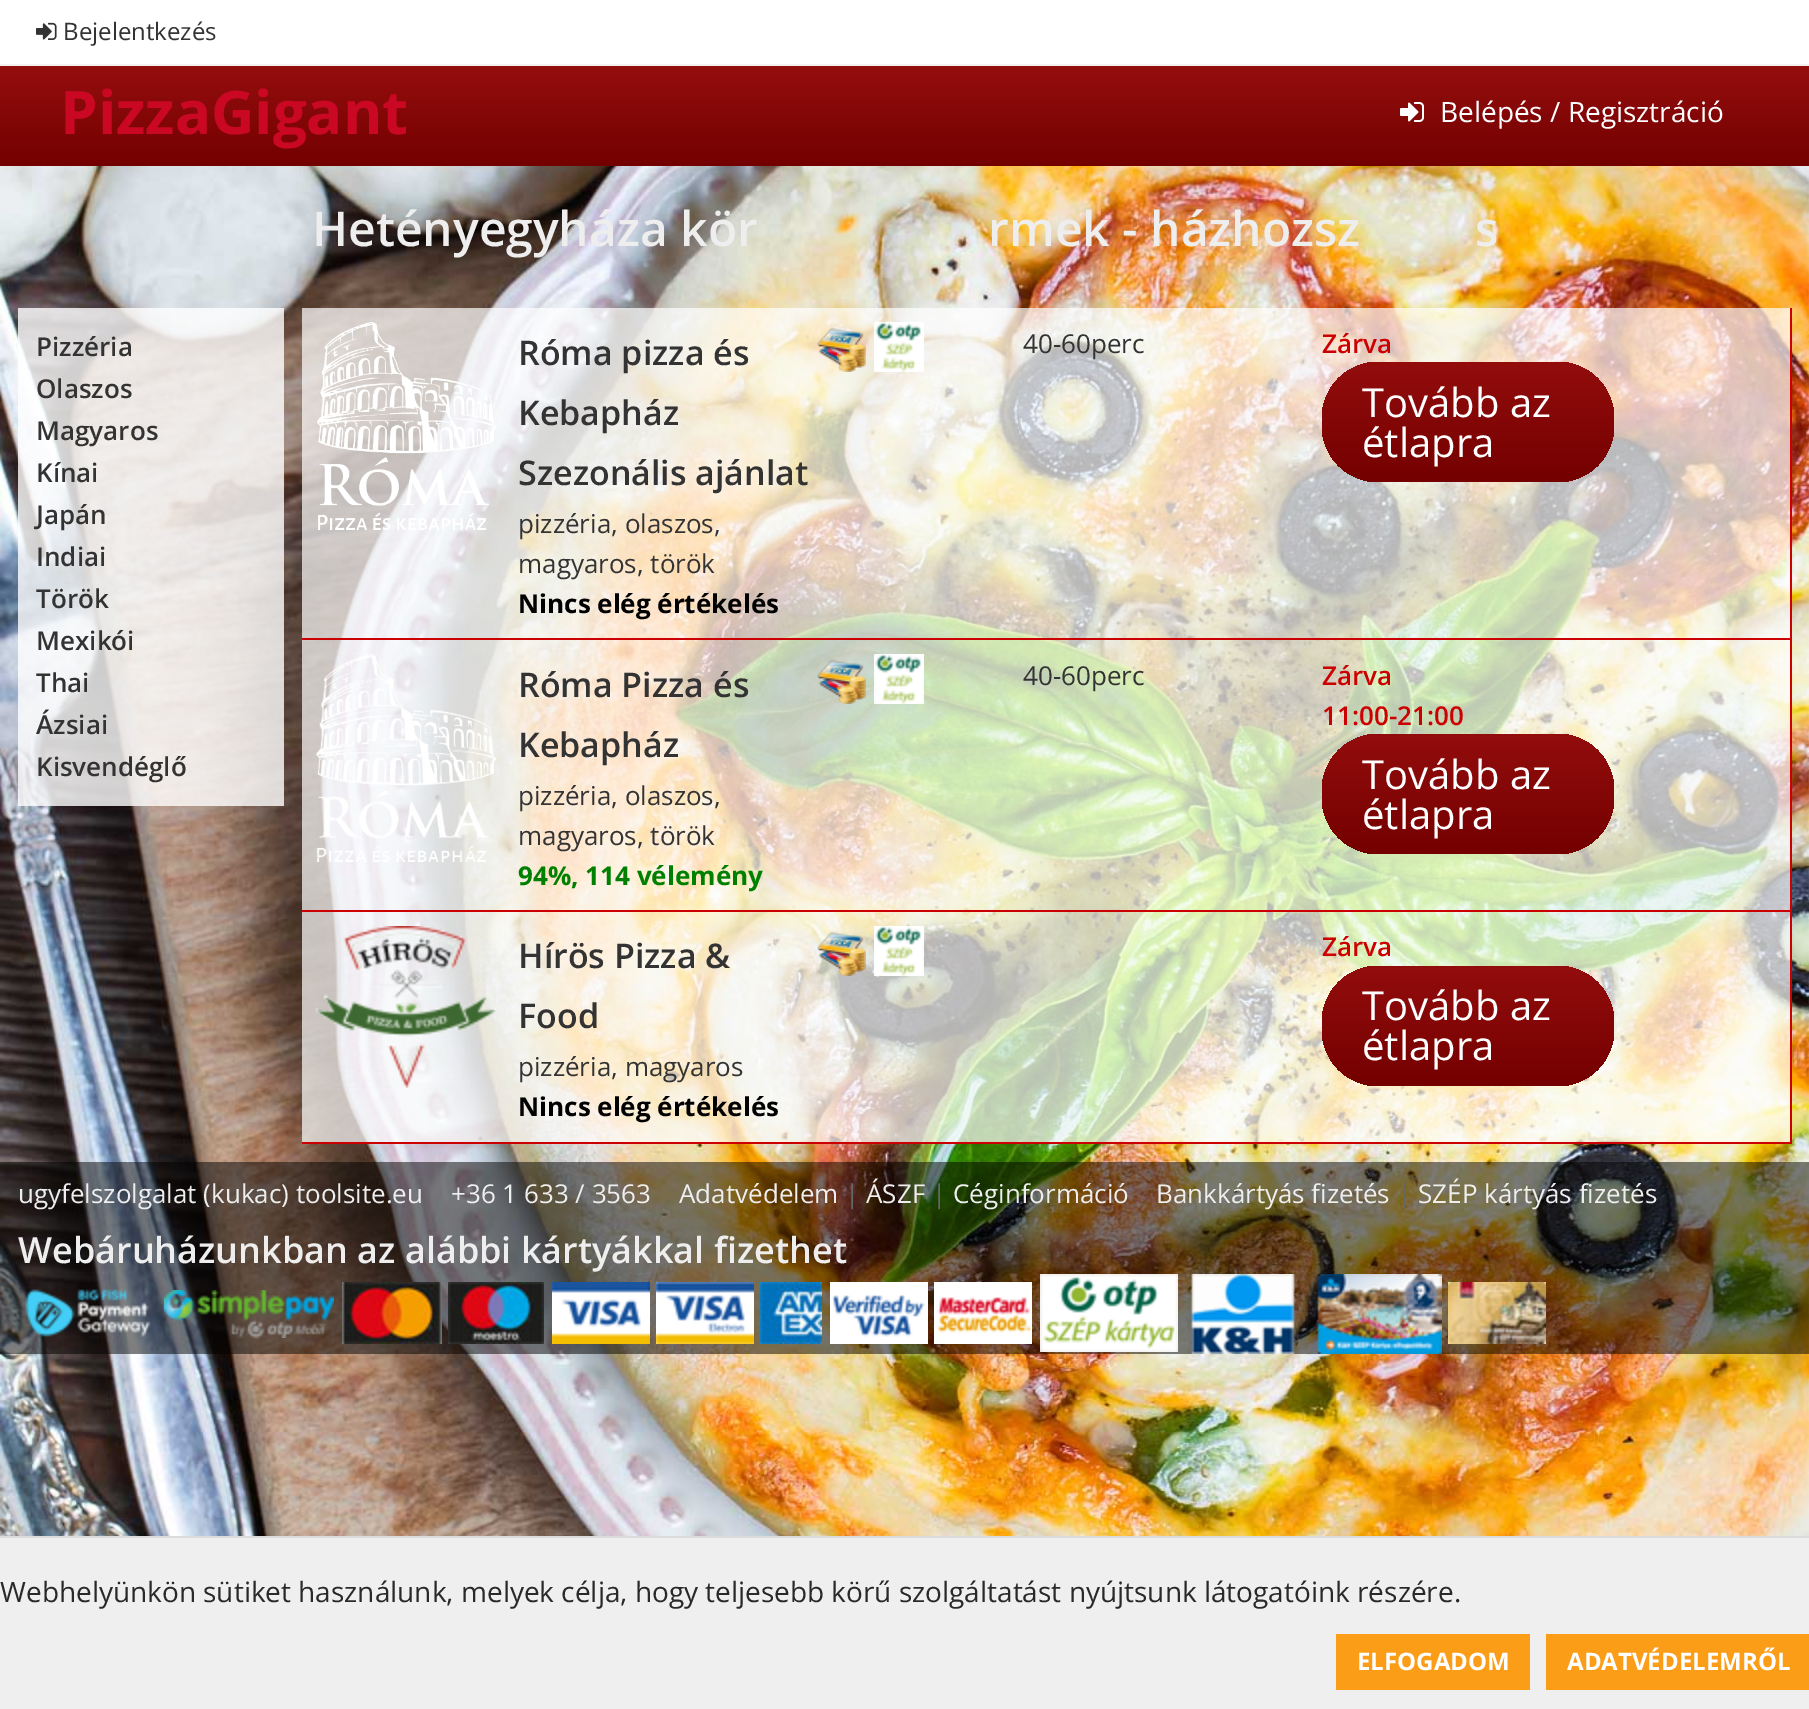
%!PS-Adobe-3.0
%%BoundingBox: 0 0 1809 1709
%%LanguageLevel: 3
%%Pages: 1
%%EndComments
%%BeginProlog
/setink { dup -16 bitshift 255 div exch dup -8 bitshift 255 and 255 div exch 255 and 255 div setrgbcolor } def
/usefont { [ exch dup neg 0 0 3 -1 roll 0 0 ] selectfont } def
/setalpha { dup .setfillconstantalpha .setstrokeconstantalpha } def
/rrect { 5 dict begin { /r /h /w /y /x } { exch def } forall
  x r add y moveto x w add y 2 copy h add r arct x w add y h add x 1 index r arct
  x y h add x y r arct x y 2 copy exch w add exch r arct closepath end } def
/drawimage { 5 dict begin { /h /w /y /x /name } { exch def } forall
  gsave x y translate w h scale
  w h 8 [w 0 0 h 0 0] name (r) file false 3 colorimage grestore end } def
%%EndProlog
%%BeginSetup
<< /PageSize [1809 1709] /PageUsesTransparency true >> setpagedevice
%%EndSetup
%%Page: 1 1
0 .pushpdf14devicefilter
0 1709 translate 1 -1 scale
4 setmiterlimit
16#FFFFFF setink
0 0 1809 1709 rectfill
(img1.raw) 0 166 1809 1370 drawimage
16#F2F2F2 setink
0 64 1809 2 rectfill
(img2.raw) 36 22 21 18 drawimage
/OpenSans-Regular 24 usefont
16#333333 setink
63 40 moveto (Bejelentkezés) show
gsave 0 66 moveto 1809 66 lineto 1809 166 lineto 0 166 lineto closepath clip newpath
<< /ShadingType 2 /ColorSpace /DeviceRGB /Coords [905 66 905 166] /Extend [true true] /Function << /FunctionType 2 /Domain [0 1] /C0 [0.584 0.055 0.055] /C1 [0.451 0 0] /N 1 >> >> shfill grestore
/OpenSans-Bold 60 usefont
16#CB0823 setink
60 134 moveto (PizzaGigant) show
(img3.raw) 1400 102 24 20 drawimage
/OpenSans-Regular 28 usefont
16#FFFFFF setink
1440 122 moveto (Belépés / Regisztráció) show
/OpenSans-SemiBold 48 usefont
16#EEEEEE setink
[
    [(Hetényegyháza kör) 312 246]
    [(rmek - házhozsz) 988 246]
    [(s) 1475 246]
] { aload pop moveto show } forall
0.8 setalpha
16#FFFFFF setink
18 308 266 498 rectfill
/OpenSans-SemiBold 26 usefont
1 setalpha
16#333333 setink
[
    [(Pizzéria) 36 356]
    [(Olaszos) 36 398]
    [(Magyaros) 36 440]
    [(Kínai) 36 482]
    [(Japán) 36 524]
    [(Indiai) 36 566]
    [(Török) 36 608]
    [(Mexikói) 36 650]
    [(Thai) 36 692]
    [(Ázsiai) 36 734]
    [(Kisvendéglő) 36 776]
] { aload pop moveto show } forall
0.7 setalpha
[
    [302 308 1488 330 16#FFFFFF]
] { aload pop setink rectfill } forall
1 setalpha
[
    [1790 308 2 836 16#CC0000]
    [302 638 1490 2 16#CC0000]
] { aload pop setink rectfill } forall
(img4.raw) 317 322 179 208 drawimage
/OpenSans-SemiBold 34 usefont
16#333333 setink
[
    [(Róma pizza és) 518 365]
    [(Kebapház) 518 425]
    [(Szezonális ajánlat) 518 485]
] { aload pop moveto show } forall
/OpenSans-Regular 26 usefont
518 533 moveto (pizzéria, olaszos,) show
518 573 moveto (magyaros, török) show
/OpenSans-Bold 26 usefont
16#000000 setink
518 613 moveto (Nincs elég értékelés) show
(img5.raw) 817 327 49 45 drawimage
(img6.raw) 874 322 50 50 drawimage
/OpenSans-Regular 26 usefont
16#333333 setink
1023 353 moveto (40-60perc) show
/OpenSans-SemiBold 26 usefont
16#CC0000 setink
1322 353 moveto (Zárva) show
gsave 1322 362 292 120 56 rrect clip newpath
<< /ShadingType 2 /ColorSpace /DeviceRGB /Coords [1468 362 1468 482] /Extend [true true] /Function << /FunctionType 2 /Domain [0 1] /C0 [0.576 0.051 0.051] /C1 [0.455 0 0] /N 1 >> >> shfill grestore
/OpenSans-Regular 40 usefont
16#FFFFFF setink
1362 417 moveto (Tovább az) show
1362 457 moveto (étlapra) show
0.7 setalpha
302 640 1488 270 rectfill
1 setalpha
16#CC0000 setink
302 910 1490 2 rectfill
(img7.raw) 316 654 180 208 drawimage
/OpenSans-SemiBold 34 usefont
16#333333 setink
518 697 moveto (Róma Pizza és) show
518 757 moveto (Kebapház) show
/OpenSans-Regular 26 usefont
518 805 moveto (pizzéria, olaszos,) show
518 845 moveto (magyaros, török) show
/OpenSans-Bold 26 usefont
16#008000 setink
518 885 moveto (94%, 114 vélemény) show
(img8.raw) 817 659 49 45 drawimage
(img9.raw) 874 654 50 50 drawimage
/OpenSans-Regular 26 usefont
16#333333 setink
1023 685 moveto (40-60perc) show
/OpenSans-SemiBold 26 usefont
16#CC0000 setink
1322 685 moveto (Zárva) show
1322 725 moveto (11:00-21:00) show
gsave 1322 734 292 120 56 rrect clip newpath
<< /ShadingType 2 /ColorSpace /DeviceRGB /Coords [1468 734 1468 854] /Extend [true true] /Function << /FunctionType 2 /Domain [0 1] /C0 [0.576 0.051 0.051] /C1 [0.455 0 0] /N 1 >> >> shfill grestore
/OpenSans-Regular 40 usefont
16#FFFFFF setink
1362 789 moveto (Tovább az) show
1362 829 moveto (étlapra) show
0.7 setalpha
302 912 1488 230 rectfill
1 setalpha
16#CC0000 setink
302 1142 1490 2 rectfill
(img10.raw) 316 926 180 162 drawimage
/OpenSans-SemiBold 34 usefont
16#333333 setink
518 968 moveto (Hírös Pizza &) show
518 1028 moveto (Food) show
/OpenSans-Regular 26 usefont
518 1076 moveto (pizzéria, magyaros) show
/OpenSans-Bold 26 usefont
16#000000 setink
518 1116 moveto (Nincs elég értékelés) show
(img11.raw) 817 931 49 45 drawimage
(img12.raw) 874 926 50 50 drawimage
/OpenSans-SemiBold 26 usefont
16#CC0000 setink
1322 956 moveto (Zárva) show
gsave 1322 966 292 120 56 rrect clip newpath
<< /ShadingType 2 /ColorSpace /DeviceRGB /Coords [1468 966 1468 1086] /Extend [true true] /Function << /FunctionType 2 /Domain [0 1] /C0 [0.576 0.051 0.051] /C1 [0.455 0 0] /N 1 >> >> shfill grestore
/OpenSans-Regular 40 usefont
16#FFFFFF setink
1362 1020 moveto (Tovább az) show
1362 1060 moveto (étlapra) show
0.5 setalpha
16#000000 setink
0 1162 1809 192 rectfill
/OpenSans-Regular 26 usefont
1 setalpha
16#EEEEEE setink
[
    [(ugyfelszolgalat \(kukac\) toolsite.eu) 18 1203]
    [(+36 1 633 / 3563) 451 1203]
    [(Adatvédelem) 679 1203]
] { aload pop moveto show } forall
16#666666 setink
845 1203 moveto (|) show
16#EEEEEE setink
866 1203 moveto (ÁSZF) show
16#666666 setink
932 1203 moveto (|) show
16#EEEEEE setink
953 1203 moveto (Céginformáció) show
1156 1203 moveto (Bankkártyás fizetés) show
16#666666 setink
1397 1203 moveto (|) show
16#EEEEEE setink
1418 1203 moveto (SZÉP kártyás fizetés) show
/OpenSans-SemiBold 36 usefont
18 1263 moveto (Webáruházunkban az alábbi kártyákkal fizethet) show
(img13.raw) 25 1289 126 48 drawimage
(img14.raw) 164 1290 170 48 drawimage
(img15.raw) 342 1282 100 62 drawimage
(img16.raw) 448 1282 96 62 drawimage
(img17.raw) 552 1282 98 62 drawimage
(img18.raw) 656 1282 98 62 drawimage
(img19.raw) 760 1282 62 62 drawimage
(img20.raw) 830 1282 98 62 drawimage
(img21.raw) 934 1282 98 62 drawimage
(img22.raw) 1040 1274 138 78 drawimage
(img23.raw) 1191 1274 251 80 drawimage
(img24.raw) 1448 1282 98 62 drawimage
16#EFEFEF setink
0 1538 1809 171 rectfill
16#DBDBDB setink
0 1536 1809 2 rectfill
/OpenSans-Regular 28 usefont
16#292929 setink
0 1602 moveto (Webhelyünkön sütiket használunk, melyek célja, hogy teljesebb körű szolgáltatást nyújtsunk látogatóink részére.) show
16#FB9D17 setink
1336 1634 194 56 rectfill
/OpenSans-Bold 24 usefont
16#FFFFFF setink
1357 1670 moveto (ELFOGADOM) show
16#FB9D17 setink
1546 1634 263 56 rectfill
16#FFFFFF setink
1567 1670 moveto (ADATVÉDELEMRŐL) show
.poppdf14devicefilter showpage
%%EOF
